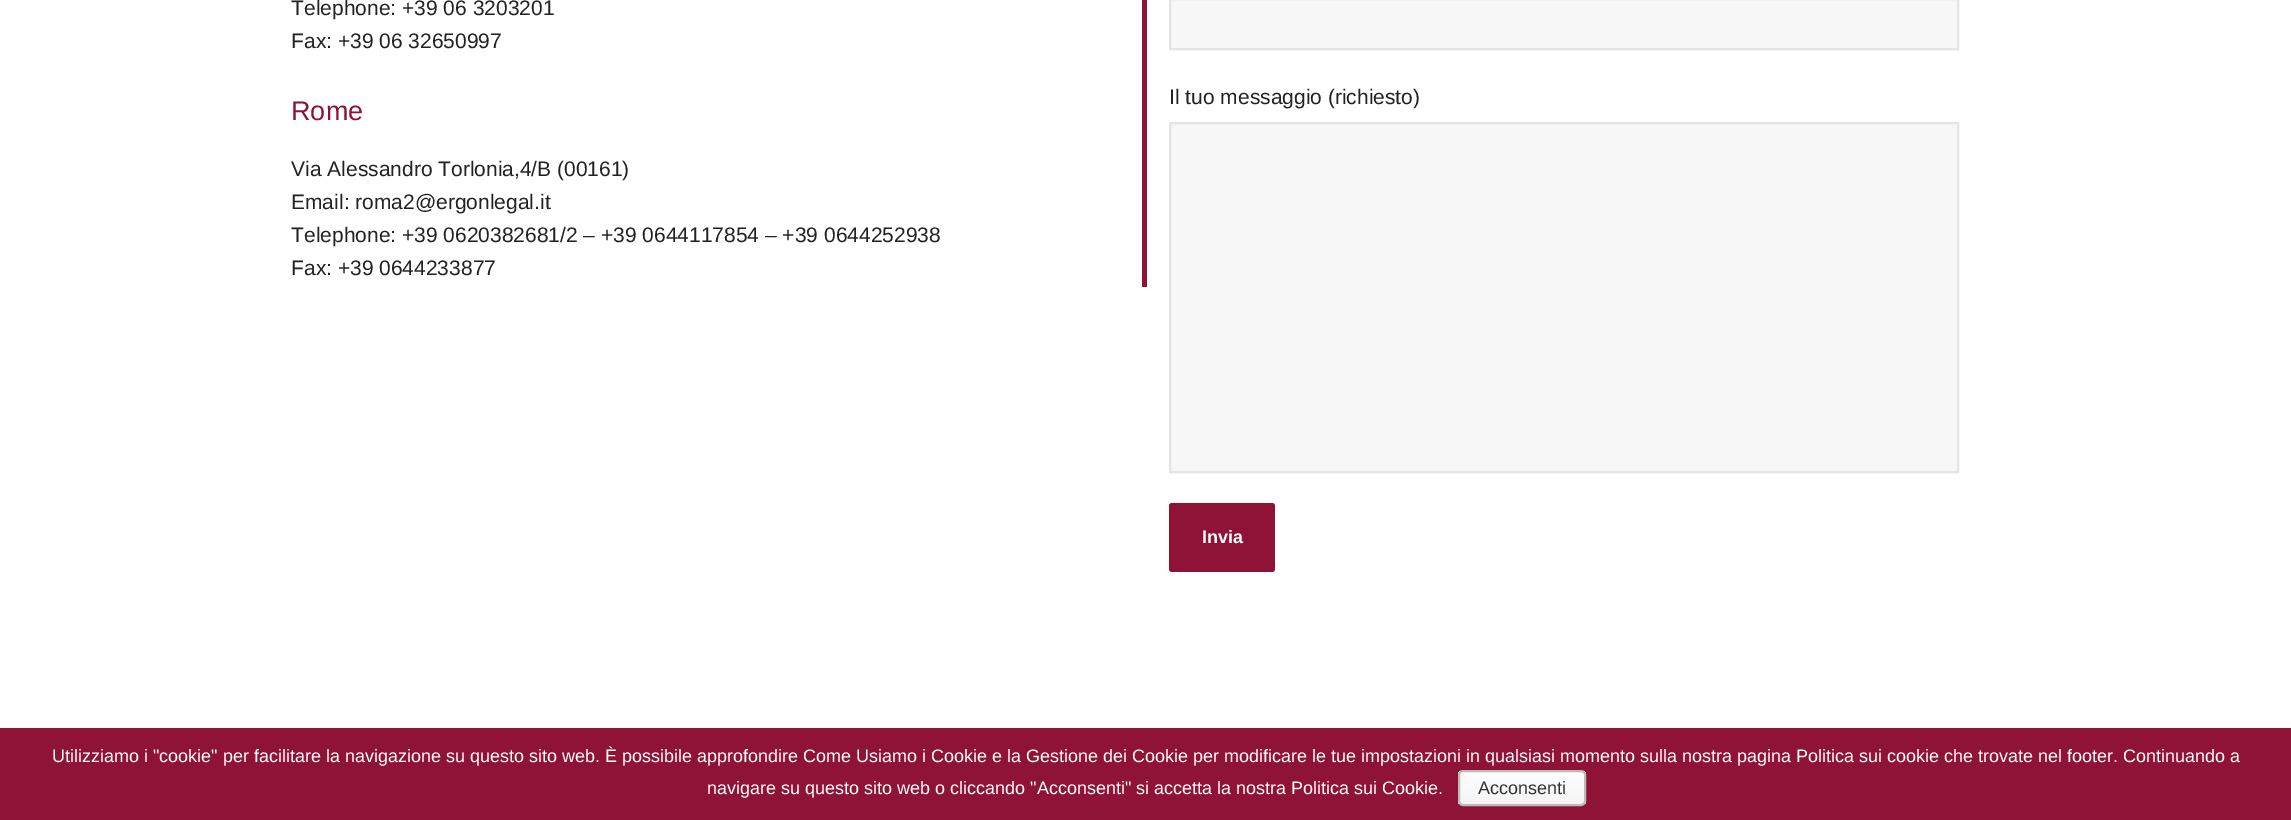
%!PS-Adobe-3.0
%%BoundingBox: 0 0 2291 820
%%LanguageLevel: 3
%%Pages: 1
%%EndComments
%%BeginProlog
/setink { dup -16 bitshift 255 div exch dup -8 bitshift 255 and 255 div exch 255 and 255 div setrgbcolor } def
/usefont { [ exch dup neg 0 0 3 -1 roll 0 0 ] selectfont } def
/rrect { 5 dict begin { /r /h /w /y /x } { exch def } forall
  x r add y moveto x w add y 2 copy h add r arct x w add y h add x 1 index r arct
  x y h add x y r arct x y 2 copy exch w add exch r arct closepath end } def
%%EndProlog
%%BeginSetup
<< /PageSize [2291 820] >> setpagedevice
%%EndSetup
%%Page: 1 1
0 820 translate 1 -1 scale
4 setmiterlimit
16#FFFFFF setink
0 0 2291 820 rectfill
16#8F1336 setink
1142 0 5 287 rectfill
/LiberationSans-Regular 21 usefont
16#222222 setink
291 15 moveto (Telephone: +39 06 3203201) show
291 48 moveto (Fax: +39 06 32650997) show
/LiberationSans-Regular 27 usefont
16#8F1336 setink
291 120 moveto (Rome) show
/LiberationSans-Regular 21 usefont
16#222222 setink
[
    [(Via Alessandro Torlonia,4/B \(00161\)) 291 176]
    [(Email: roma2@ergonlegal.it) 291 209]
    [(Telephone: +39 0620382681/2 – +39 0644117854 – +39 0644252938) 291 242]
    [(Fax: +39 0644233877) 291 275]
] { aload pop moveto show } forall
16#F7F7F7 setink
1170 -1 moveto 1958 -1 lineto 1958 49 lineto 1170 49 lineto closepath gsave fill grestore
16#E4E4E4 setink
2 setlinewidth
stroke
16#222222 setink
1169 104 moveto (Il tuo messaggio \(richiesto\)) show
16#F7F7F7 setink
1170 123 moveto 1958 123 lineto 1958 472 lineto 1170 472 lineto closepath gsave fill grestore
16#E4E4E4 setink
stroke
16#8F1336 setink
1169 503 106 69 3 rrect fill
/LiberationSans-Bold 18 usefont
16#FFFFFF setink
1202 543 moveto (Invia) show
16#8F1336 setink
0 728 2291 92 rectfill
/LiberationSans-Regular 18 usefont
16#FFFFFF setink
52 762 moveto (Utilizziamo i "cookie" per facilitare la navigazione su questo sito web. È possibile approfondire Come Usiamo i Cookie e la Gestione dei Cookie per modificare le tue impostazioni in qualsiasi momento sulla nostra pagina Politica sui cookie che trovate nel footer. Continuando a) show
707 794 moveto (navigare su questo sito web o cliccando "Acconsenti" si accetta la nostra Politica sui Cookie.) show
gsave
1458 770 128 36 5 rrect clip newpath
gsave 1458 771 moveto 1586 771 lineto 1586 804 lineto 1458 804 lineto closepath clip newpath
<< /ShadingType 2 /ColorSpace /DeviceRGB /Coords [1522 771 1522 804] /Extend [true true] /Function << /FunctionType 2 /Domain [0 1] /C0 [0.996 0.996 0.996] /C1 [0.957 0.957 0.957] /N 1 >> >> shfill grestore
grestore
16#BBBBBB setink
1459 771 126 34 4 rrect stroke
16#333333 setink
1478 794 moveto (Acconsenti) show
showpage
%%EOF
